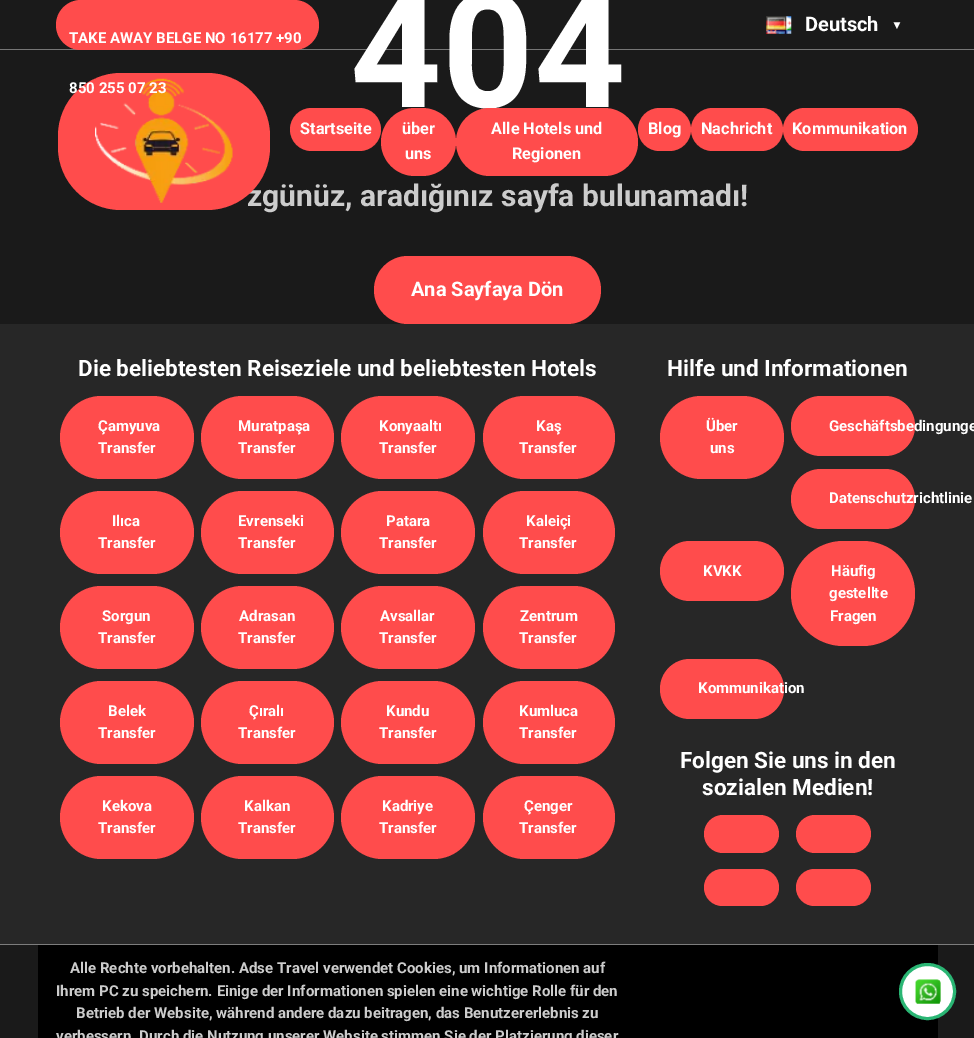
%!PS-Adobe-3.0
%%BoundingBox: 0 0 974 1038
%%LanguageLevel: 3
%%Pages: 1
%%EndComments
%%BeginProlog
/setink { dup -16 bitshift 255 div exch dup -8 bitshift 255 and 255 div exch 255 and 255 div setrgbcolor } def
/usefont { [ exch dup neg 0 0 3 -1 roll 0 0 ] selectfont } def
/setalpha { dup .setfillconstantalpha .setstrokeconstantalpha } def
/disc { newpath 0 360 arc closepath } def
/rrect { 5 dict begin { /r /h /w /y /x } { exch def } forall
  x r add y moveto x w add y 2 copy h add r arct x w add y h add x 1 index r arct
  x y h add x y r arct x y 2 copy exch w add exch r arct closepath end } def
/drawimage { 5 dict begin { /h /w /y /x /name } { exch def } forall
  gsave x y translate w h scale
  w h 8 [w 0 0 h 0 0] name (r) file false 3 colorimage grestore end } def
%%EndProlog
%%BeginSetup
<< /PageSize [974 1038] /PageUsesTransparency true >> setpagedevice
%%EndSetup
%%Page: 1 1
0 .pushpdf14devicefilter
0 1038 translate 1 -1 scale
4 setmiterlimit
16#1A1A1A setink
0 0 974 1038 rectfill
/Roboto-Bold 160 usefont
16#FFFFFF setink
350 107 moveto (404) show
/Roboto-Bold 30 usefont
16#CCCCCC setink
247 206 moveto (zgünüz, aradığınız sayfa bulunamadı!) show
16#FF4C4C setink
374 256 227 68 34 rrect fill
/Roboto-Bold 20 usefont
16#FFFFFF setink
411 296 moveto (Ana Sayfaya Dön) show
0.4 setalpha
0 49 974 1 rectfill
1 setalpha
(img1.raw) 766 16 26 18 drawimage
805 31 moveto (Deutsch) show
/LiberationSans-Bold 12 usefont
891 29 moveto (▼) show
16#FF4C4C setink
56 0 263 50 25 rrect fill
/Roboto-Bold 15 usefont
16#FFFFFF setink
69 43 moveto (TAKE AWAY BELGE NO 16177 +90) show
16#FF4C4C setink
58 73 212 137 63 rrect fill
(img2.raw) 95 78 138 125 drawimage
16#FFFFFF setink
69 93 moveto (850 255 07 23) show
16#FF4C4C setink
290 108 91 43 21.5 rrect fill
/Roboto-Bold 16.25 usefont
16#FFFFFF setink
300 134 moveto (Startseite) show
16#FF4C4C setink
381 108 75 68 34 rrect fill
16#FFFFFF setink
402 134 moveto (über) show
405 159 moveto (uns) show
16#FF4C4C setink
456 108 182 68 34 rrect fill
16#FFFFFF setink
491 134 moveto (Alle Hotels und) show
512 159 moveto (Regionen) show
16#FF4C4C setink
638 108 53 43 21.5 rrect fill
16#FFFFFF setink
648 134 moveto (Blog) show
16#FF4C4C setink
691 108 92 43 21.5 rrect fill
16#FFFFFF setink
701 134 moveto (Nachricht) show
16#FF4C4C setink
783 108 135 43 21.5 rrect fill
16#FFFFFF setink
792 134 moveto (Kommunikation) show
16#272727 setink
0 324 974 620 rectfill
16#7D7D7D setink
0 944 974 1 rectfill
/Roboto-Bold 22.5 usefont
16#FFFFFF setink
78 376 moveto (Die beliebtesten Reiseziele und beliebtesten Hotels) show
16#FF4C4C setink
60 396 134 83 41.5 rrect fill
/Roboto-Bold 15 usefont
16#FFFFFF setink
98 431 moveto (Çamyuva) show
98 453 moveto (Transfer) show
16#FF4C4C setink
201 396 133 83 41.5 rrect fill
16#FFFFFF setink
238 431 moveto (Muratpaşa) show
238 453 moveto (Transfer) show
16#FF4C4C setink
341 396 134 83 41.5 rrect fill
16#FFFFFF setink
379 431 moveto (Konyaaltı) show
379 453 moveto (Transfer) show
16#FF4C4C setink
483 396 132 83 41.5 rrect fill
16#FFFFFF setink
536 431 moveto (Kaş) show
519 453 moveto (Transfer) show
16#FF4C4C setink
60 491 134 83 41.5 rrect fill
16#FFFFFF setink
112 526 moveto (Ilıca) show
98 548 moveto (Transfer) show
16#FF4C4C setink
201 491 133 83 41.5 rrect fill
16#FFFFFF setink
238 526 moveto (Evrenseki) show
238 548 moveto (Transfer) show
16#FF4C4C setink
341 491 134 83 41.5 rrect fill
16#FFFFFF setink
386 526 moveto (Patara) show
379 548 moveto (Transfer) show
16#FF4C4C setink
483 491 132 83 41.5 rrect fill
16#FFFFFF setink
526 526 moveto (Kaleiçi) show
519 548 moveto (Transfer) show
16#FF4C4C setink
60 586 134 83 41.5 rrect fill
16#FFFFFF setink
102 621 moveto (Sorgun) show
98 643 moveto (Transfer) show
16#FF4C4C setink
201 586 133 83 41.5 rrect fill
16#FFFFFF setink
239 621 moveto (Adrasan) show
238 643 moveto (Transfer) show
16#FF4C4C setink
341 586 134 83 41.5 rrect fill
16#FFFFFF setink
380 621 moveto (Avsallar) show
379 643 moveto (Transfer) show
16#FF4C4C setink
483 586 132 83 41.5 rrect fill
16#FFFFFF setink
520 621 moveto (Zentrum) show
519 643 moveto (Transfer) show
16#FF4C4C setink
60 681 134 83 41.5 rrect fill
16#FFFFFF setink
108 716 moveto (Belek) show
98 738 moveto (Transfer) show
16#FF4C4C setink
201 681 133 83 41.5 rrect fill
16#FFFFFF setink
249 716 moveto (Çıralı) show
238 738 moveto (Transfer) show
16#FF4C4C setink
341 681 134 83 41.5 rrect fill
16#FFFFFF setink
386 716 moveto (Kundu) show
379 738 moveto (Transfer) show
16#FF4C4C setink
483 681 132 83 41.5 rrect fill
16#FFFFFF setink
519 716 moveto (Kumluca) show
519 738 moveto (Transfer) show
16#FF4C4C setink
60 776 134 83 41.5 rrect fill
16#FFFFFF setink
102 811 moveto (Kekova) show
98 833 moveto (Transfer) show
16#FF4C4C setink
201 776 133 83 41.5 rrect fill
16#FFFFFF setink
244 811 moveto (Kalkan) show
238 833 moveto (Transfer) show
16#FF4C4C setink
341 776 134 83 41.5 rrect fill
16#FFFFFF setink
382 811 moveto (Kadriye) show
379 833 moveto (Transfer) show
16#FF4C4C setink
483 776 132 83 41.5 rrect fill
16#FFFFFF setink
524 811 moveto (Çenger) show
519 833 moveto (Transfer) show
/Roboto-Bold 22.5 usefont
667 376 moveto (Hilfe und Informationen) show
16#FF4C4C setink
660 396 124 83 41.5 rrect fill
/Roboto-Bold 15 usefont
16#FFFFFF setink
706 431 moveto (Über) show
710 453 moveto (uns) show
16#FF4C4C setink
791 396 124 60 30 rrect fill
16#FFFFFF setink
829 431 moveto (Geschäftsbedingunge) show
16#FF4C4C setink
791 469 124 60 30 rrect fill
16#FFFFFF setink
829 503 moveto (Datenschutzrichtlinie) show
16#FF4C4C setink
660 541 124 60 30 rrect fill
16#FFFFFF setink
703 576 moveto (KVKK) show
16#FF4C4C setink
791 541 124 105 52.5 rrect fill
16#FFFFFF setink
[
    [(Häufig) 831 576]
    [(gestellte) 829 598]
    [(Fragen) 830 621]
] { aload pop moveto show } forall
16#FF4C4C setink
660 659 124 60 30 rrect fill
16#FFFFFF setink
698 693 moveto (Kommunikation) show
/Roboto-Bold 22.5 usefont
680 768 moveto (Folgen Sie uns in den) show
702 795 moveto (sozialen Medien!) show
16#FF4C4C setink
704 815 75 38 19 rrect fill
796 815 75 38 19 rrect fill
704 869 75 37 18.5 rrect fill
796 869 75 37 18.5 rrect fill
16#000000 setink
38 945 900 93 rectfill
/Roboto-Bold 15 usefont
16#CCCCCC setink
[
    [(Alle Rechte vorbehalten. Adse Travel verwendet Cookies, um Informationen auf) 70 973]
    [(Ihrem PC zu speichern. Einige der Informationen spielen eine wichtige Rolle für den) 56 996]
    [(Betrieb der Website, während andere dazu beitragen, das Benutzererlebnis zu) 76 1018]
    [(verbessern. Durch die Nutzung unserer Website stimmen Sie der Platzierung dieser) 56 1041]
] { aload pop moveto show } forall
16#FFFFFF setink
927.5 991.5 27 disc gsave fill grestore
16#2AB674 setink
3 setlinewidth
stroke
(img3.raw) 915 979 26 25 drawimage
(img4.raw) 915 979 26 25 drawimage
.poppdf14devicefilter showpage
%%EOF
